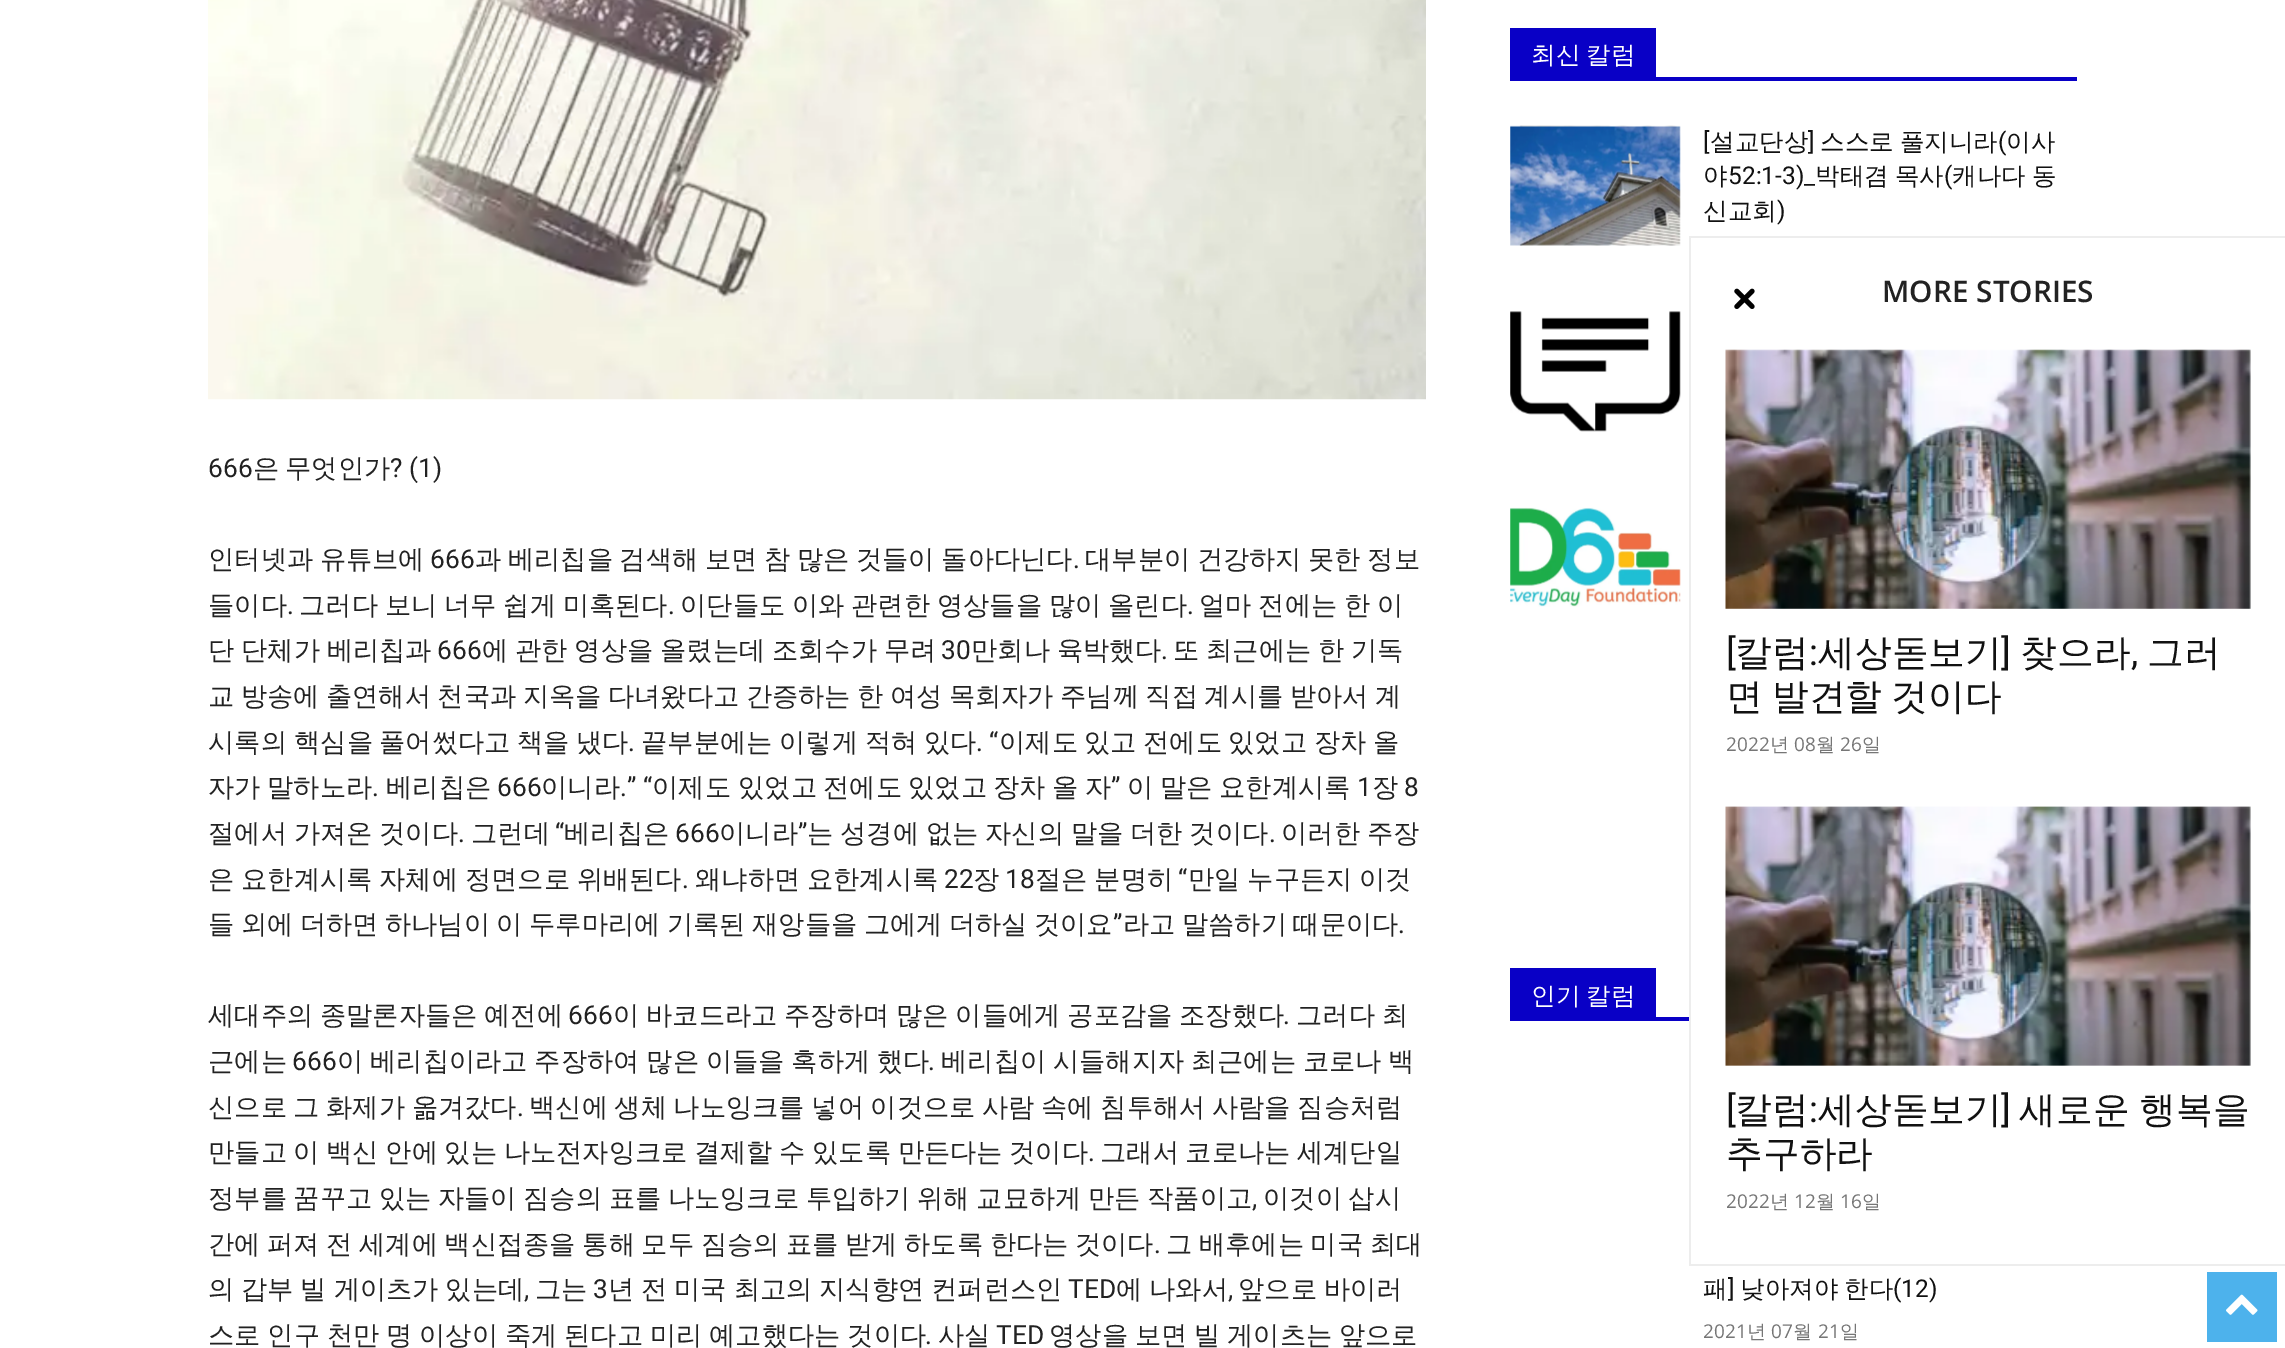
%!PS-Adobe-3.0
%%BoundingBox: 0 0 2285 1348
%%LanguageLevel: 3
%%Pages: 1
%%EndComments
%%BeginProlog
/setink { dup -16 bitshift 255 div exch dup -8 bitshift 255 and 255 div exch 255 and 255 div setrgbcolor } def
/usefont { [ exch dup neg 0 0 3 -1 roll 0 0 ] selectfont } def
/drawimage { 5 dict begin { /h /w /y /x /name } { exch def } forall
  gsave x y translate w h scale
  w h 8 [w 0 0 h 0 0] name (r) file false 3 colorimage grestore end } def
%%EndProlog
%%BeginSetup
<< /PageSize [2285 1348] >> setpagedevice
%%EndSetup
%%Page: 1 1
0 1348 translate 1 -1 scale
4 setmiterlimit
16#FFFFFF setink
0 0 2285 1348 rectfill
(img1.raw) 208 0 1218 400 drawimage
/Roboto-Regular 26.25 usefont
16#222222 setink
208 477 moveto (666) show
/WenQuanYiZenHei-Medium 26.25 usefont
253 477 moveto (은) show
285 477 moveto (무엇인가) show
/Roboto-Regular 26.25 usefont
390 477 moveto (? \(1\)) show
/WenQuanYiZenHei-Medium 26.25 usefont
208 568 moveto -1.25 0 32 (인터넷과 유튜브에) widthshow
/Roboto-Regular 26.25 usefont
430 568 moveto (666) show
/WenQuanYiZenHei-Medium 26.25 usefont
475 568 moveto -1.25 0 32 (과 베리칩을 검색해 보면 참 많은 것들이 돌아다닌다) widthshow
/Roboto-Regular 26.25 usefont
1073 568 moveto (.) show
/WenQuanYiZenHei-Medium 26.25 usefont
1085 568 moveto -1.25 0 32 (대부분이 건강하지 못한 정보) widthshow
208 614 moveto (들이다) show
/Roboto-Regular 26.25 usefont
287 614 moveto (.) show
/WenQuanYiZenHei-Medium 26.25 usefont
299 614 moveto -1 0 32 (그러다 보니 너무 쉽게 미혹된다) widthshow
/Roboto-Regular 26.25 usefont
668 614 moveto (.) show
/WenQuanYiZenHei-Medium 26.25 usefont
680 614 moveto -1 0 32 (이단들도 이와 관련한 영상들을 많이 올린다) widthshow
/Roboto-Regular 26.25 usefont
1187 614 moveto (.) show
/WenQuanYiZenHei-Medium 26.25 usefont
1199 614 moveto -1 0 32 (얼마 전에는 한 이) widthshow
208 659 moveto -1 0 32 (단 단체가 베리칩과) widthshow
/Roboto-Regular 26.25 usefont
437 659 moveto (666) show
/WenQuanYiZenHei-Medium 26.25 usefont
482 659 moveto -1 0 32 (에 관한 영상을 올렸는데 조회수가 무려) widthshow
/Roboto-Regular 26.25 usefont
941 659 moveto (30) show
/WenQuanYiZenHei-Medium 26.25 usefont
971 659 moveto -1 0 32 (만회나 육박했다) widthshow
/Roboto-Regular 26.25 usefont
1161 659 moveto (.) show
/WenQuanYiZenHei-Medium 26.25 usefont
1173 659 moveto -1 0 32 (또 최근에는 한 기독) widthshow
208 705 moveto -1.4 0 32 (교 방송에 출연해서 천국과 지옥을 다녀왔다고 간증하는 한 여성 목회자가 주님께 직접 계시를 받아서 계) widthshow
[
    [(시록의) 208 751]
    [(핵심을) 294 751]
    [(풀어썼다고) 379 751]
    [(책을) 517 751]
    [(냈다) 576 751]
] { aload pop moveto show } forall
/Roboto-Regular 26.25 usefont
628 751 moveto (.) show
/WenQuanYiZenHei-Medium 26.25 usefont
[
    [(끝부분에는) 641 751]
    [(이렇게) 779 751]
    [(적혀) 865 751]
    [(있다) 924 751]
] { aload pop moveto show } forall
/Roboto-Regular 26.25 usefont
976 751 moveto (. “) show
/WenQuanYiZenHei-Medium 26.25 usefont
[
    [(이제도) 999 751]
    [(있고) 1084 751]
    [(전에도) 1143 751]
    [(있었고) 1228 751]
    [(장차) 1314 751]
    [(올) 1373 751]
    [(자가) 208 796]
    [(말하노라) 267 796]
] { aload pop moveto show } forall
/Roboto-Regular 26.25 usefont
372 796 moveto (.) show
/WenQuanYiZenHei-Medium 26.25 usefont
386 796 moveto (베리칩은) show
/Roboto-Regular 26.25 usefont
497 796 moveto (666) show
/WenQuanYiZenHei-Medium 26.25 usefont
541 796 moveto (이니라) show
/Roboto-Regular 26.25 usefont
620 796 moveto (.” “) show
/WenQuanYiZenHei-Medium 26.25 usefont
[
    [(이제도) 652 796]
    [(있었고) 738 796]
    [(전에도) 823 796]
    [(있었고) 908 796]
    [(장차) 993 796]
    [(올) 1052 796]
    [(자) 1085 796]
] { aload pop moveto show } forall
/Roboto-Regular 26.25 usefont
1111 796 moveto (”) show
/WenQuanYiZenHei-Medium 26.25 usefont
[
    [(이) 1127 796]
    [(말은) 1160 796]
    [(요한계시록) 1219 796]
] { aload pop moveto show } forall
/Roboto-Regular 26.25 usefont
1357 796 moveto (1) show
/WenQuanYiZenHei-Medium 26.25 usefont
1372 796 moveto (장) show
/Roboto-Regular 26.25 usefont
1404 796 moveto (8) show
/WenQuanYiZenHei-Medium 26.25 usefont
208 842 moveto -1 0 32 (절에서 가져온 것이다) widthshow
/Roboto-Regular 26.25 usefont
458 842 moveto (.) show
/WenQuanYiZenHei-Medium 26.25 usefont
471 842 moveto (그런데) show
/Roboto-Regular 26.25 usefont
555 842 moveto (“) show
/WenQuanYiZenHei-Medium 26.25 usefont
564 842 moveto (베리칩은) show
/Roboto-Regular 26.25 usefont
675 842 moveto (666) show
/WenQuanYiZenHei-Medium 26.25 usefont
719 842 moveto (이니라) show
/Roboto-Regular 26.25 usefont
798 842 moveto (”) show
/WenQuanYiZenHei-Medium 26.25 usefont
807 842 moveto -1 0 32 (는 성경에 없는 자신의 말을 더한 것이다) widthshow
/Roboto-Regular 26.25 usefont
1269 842 moveto (.) show
/WenQuanYiZenHei-Medium 26.25 usefont
1281 842 moveto -1 0 32 (이러한 주장) widthshow
208 888 moveto -1 0 32 (은 요한계시록 자체에 정면으로 위배된다) widthshow
/Roboto-Regular 26.25 usefont
682 888 moveto (.) show
/WenQuanYiZenHei-Medium 26.25 usefont
695 888 moveto -1 0 32 (왜냐하면 요한계시록) widthshow
/Roboto-Regular 26.25 usefont
944 888 moveto (22) show
/WenQuanYiZenHei-Medium 26.25 usefont
973 888 moveto (장) show
/Roboto-Regular 26.25 usefont
1005 888 moveto (18) show
/WenQuanYiZenHei-Medium 26.25 usefont
1035 888 moveto -1 0 32 (절은 분명히) widthshow
/Roboto-Regular 26.25 usefont
1178 888 moveto (“) show
/WenQuanYiZenHei-Medium 26.25 usefont
1188 888 moveto -1 0 32 (만일 누구든지 이것) widthshow
208 933 moveto -1.4 0 32 (들 외에 더하면 하나님이 이 두루마리에 기록된 재앙들을 그에게 더하실 것이요) widthshow
/Roboto-Regular 26.25 usefont
1113 933 moveto (”) show
/WenQuanYiZenHei-Medium 26.25 usefont
1123 933 moveto -1.4 0 32 (라고 말씀하기 때문이다) widthshow
/Roboto-Regular 26.25 usefont
1398 933 moveto (.) show
/WenQuanYiZenHei-Medium 26.25 usefont
208 1024 moveto -1 0 32 (세대주의 종말론자들은 예전에) widthshow
/Roboto-Regular 26.25 usefont
568 1024 moveto (666) show
/WenQuanYiZenHei-Medium 26.25 usefont
613 1024 moveto -1 0 32 (이 바코드라고 주장하며 많은 이들에게 공포감을 조장했다) widthshow
/Roboto-Regular 26.25 usefont
1283 1024 moveto (.) show
/WenQuanYiZenHei-Medium 26.25 usefont
1296 1024 moveto -1 0 32 (그러다 최) widthshow
208 1070 moveto (근에는) show
/Roboto-Regular 26.25 usefont
292 1070 moveto (666) show
/WenQuanYiZenHei-Medium 26.25 usefont
337 1070 moveto -1 0 32 (이 베리칩이라고 주장하여 많은 이들을 혹하게 했다) widthshow
/Roboto-Regular 26.25 usefont
928 1070 moveto (.) show
/WenQuanYiZenHei-Medium 26.25 usefont
941 1070 moveto -1 0 32 (베리칩이 시들해지자 최근에는 코로나 백) widthshow
208 1116 moveto -1.25 0 32 (신으로 그 화제가 옮겨갔다) widthshow
/Roboto-Regular 26.25 usefont
517 1116 moveto (.) show
/WenQuanYiZenHei-Medium 26.25 usefont
529 1116 moveto -1.25 0 32 (백신에 생체 나노잉크를 넣어 이것으로 사람 속에 침투해서 사람을 짐승처럼) widthshow
208 1161 moveto -1.25 0 32 (만들고 이 백신 안에 있는 나노전자잉크로 결제할 수 있도록 만든다는 것이다) widthshow
/Roboto-Regular 26.25 usefont
1088 1161 moveto (.) show
/WenQuanYiZenHei-Medium 26.25 usefont
1100 1161 moveto -1.25 0 32 (그래서 코로나는 세계단일) widthshow
208 1207 moveto -1.25 0 32 (정부를 꿈꾸고 있는 자들이 짐승의 표를 나노잉크로 투입하기 위해 교묘하게 만든 작품이고) widthshow
/Roboto-Regular 26.25 usefont
1252 1207 moveto (,) show
/WenQuanYiZenHei-Medium 26.25 usefont
1263 1207 moveto -1.25 0 32 (이것이 삽시) widthshow
208 1253 moveto -1.25 0 32 (간에 퍼져 전 세계에 백신접종을 통해 모두 짐승의 표를 받게 하도록 한다는 것이다) widthshow
/Roboto-Regular 26.25 usefont
1154 1253 moveto (.) show
/WenQuanYiZenHei-Medium 26.25 usefont
1166 1253 moveto -1.25 0 32 (그 배후에는 미국 최대) widthshow
208 1298 moveto -1 0 32 (의 갑부 빌 게이츠가 있는데) widthshow
/Roboto-Regular 26.25 usefont
524 1298 moveto (,) show
/WenQuanYiZenHei-Medium 26.25 usefont
535 1298 moveto (그는) show
/Roboto-Regular 26.25 usefont
593 1298 moveto (3) show
/WenQuanYiZenHei-Medium 26.25 usefont
608 1298 moveto -1 0 32 (년 전 미국 최고의 지식향연 컨퍼런스인) widthshow
/Roboto-Regular 26.25 usefont
1068 1298 moveto (TED) show
/WenQuanYiZenHei-Medium 26.25 usefont
1116 1298 moveto -1 0 32 (에 나와서) widthshow
/Roboto-Regular 26.25 usefont
1228 1298 moveto (,) show
/WenQuanYiZenHei-Medium 26.25 usefont
1238 1298 moveto -1 0 32 (앞으로 바이러) widthshow
208 1344 moveto -1 0 32 (스로 인구 천만 명 이상이 죽게 된다고 미리 예고했다는 것이다) widthshow
/Roboto-Regular 26.25 usefont
925 1344 moveto (.) show
/WenQuanYiZenHei-Medium 26.25 usefont
938 1344 moveto (사실) show
/Roboto-Regular 26.25 usefont
996 1344 moveto (TED) show
/WenQuanYiZenHei-Medium 26.25 usefont
1049 1344 moveto -1 0 32 (영상을 보면 빌 게이츠는 앞으로) widthshow
16#0900C6 setink
1510 77 567 4 rectfill
1510 28 146 49 rectfill
/WenQuanYiZenHei-Medium 24.5 usefont
16#FFFFFF setink
1531 63 moveto -1.25 0 32 (최신 칼럼) widthshow
(img2.raw) 1510 125 171 121 drawimage
/Roboto-Regular 24.5 usefont
16#111111 setink
1703 150 moveto ([) show
/WenQuanYiZenHei-Medium 24.5 usefont
1710 150 moveto (설교단상) show
/Roboto-Regular 24.5 usefont
1808 150 moveto (]) show
/WenQuanYiZenHei-Medium 24.5 usefont
1820 150 moveto -1 0 32 (스스로 풀지니라) widthshow
/Roboto-Regular 24.5 usefont
1998 150 moveto (\() show
/WenQuanYiZenHei-Medium 24.5 usefont
2006 150 moveto (이사) show
1703 184 moveto (야) show
/Roboto-Regular 24.5 usefont
1728 184 moveto (52:1-3\)_) show
/WenQuanYiZenHei-Medium 24.5 usefont
1815 184 moveto -1.25 0 32 (박태겸 목사) widthshow
/Roboto-Regular 24.5 usefont
1944 184 moveto (\() show
/WenQuanYiZenHei-Medium 24.5 usefont
1952 184 moveto -1.25 0 32 (캐나다 동) widthshow
1703 219 moveto (신교회) show
/Roboto-Regular 24.5 usefont
1777 219 moveto (\)) show
(img3.raw) 1510 311 171 121 drawimage
(img4.raw) 1510 507 171 100 drawimage
16#0900C6 setink
1510 1017 179 4 rectfill
1510 968 146 49 rectfill
/WenQuanYiZenHei-Medium 24.5 usefont
16#FFFFFF setink
1531 1004 moveto -1.25 0 32 (인기 칼럼) widthshow
16#111111 setink
1703 1297 moveto (패) show
/Roboto-Regular 24.5 usefont
1728 1297 moveto (]) show
/WenQuanYiZenHei-Medium 24.5 usefont
1740 1297 moveto -1 0 32 (낮아져야 한다) widthshow
/Roboto-Regular 24.5 usefont
1893 1297 moveto (\(12\)) show
/OpenSans-Regular 19 usefont
16#767676 setink
1703 1338 moveto (2021) show
/WenQuanYiZenHei-Medium 19 usefont
1747 1338 moveto (년) show
/OpenSans-Regular 19 usefont
1771 1338 moveto (07) show
/WenQuanYiZenHei-Medium 19 usefont
1793 1338 moveto (월) show
/OpenSans-Regular 19 usefont
1818 1338 moveto (21) show
/WenQuanYiZenHei-Medium 19 usefont
1840 1338 moveto (일) show
[
    [1689 236 596 2 16#EDEDED]
    [1689 1264 596 2 16#EDEDED]
    [1689 236 2 1029 16#EDEDED]
] { aload pop setink rectfill } forall
(img5.raw) 1734 288 21 21 drawimage
/OpenSans-SemiBold 29.75 usefont
16#222222 setink
1882 302 moveto (MORE STORIES) show
(img6.raw) 1725 349 526 260 drawimage
/Roboto-Regular 36.75 usefont
16#111111 setink
1726 665 moveto ([) show
/WenQuanYiZenHei-Medium 36.75 usefont
1735 665 moveto (칼럼) show
/Roboto-Regular 36.75 usefont
1809 665 moveto (:) show
/WenQuanYiZenHei-Medium 36.75 usefont
1818 665 moveto (세상돋보기) show
/Roboto-Regular 36.75 usefont
2001 665 moveto (]) show
/WenQuanYiZenHei-Medium 36.75 usefont
2020 665 moveto (찾으라) show
/Roboto-Regular 36.75 usefont
2131 665 moveto (,) show
/WenQuanYiZenHei-Medium 36.75 usefont
2147 665 moveto (그러) show
1726 709 moveto -2 0 32 (면 발견할 것이다) widthshow
/OpenSans-Regular 19 usefont
16#767676 setink
1726 751 moveto (2022) show
/WenQuanYiZenHei-Medium 19 usefont
1770 751 moveto (년) show
/OpenSans-Regular 19 usefont
1794 751 moveto (08) show
/WenQuanYiZenHei-Medium 19 usefont
1816 751 moveto (월) show
/OpenSans-Regular 19 usefont
1840 751 moveto (26) show
/WenQuanYiZenHei-Medium 19 usefont
1862 751 moveto (일) show
(img7.raw) 1725 806 526 260 drawimage
/Roboto-Regular 36.75 usefont
16#111111 setink
1726 1122 moveto ([) show
/WenQuanYiZenHei-Medium 36.75 usefont
1735 1122 moveto (칼럼) show
/Roboto-Regular 36.75 usefont
1809 1122 moveto (:) show
/WenQuanYiZenHei-Medium 36.75 usefont
1818 1122 moveto (세상돋보기) show
/Roboto-Regular 36.75 usefont
2001 1122 moveto (]) show
/WenQuanYiZenHei-Medium 36.75 usefont
2019 1122 moveto -1 0 32 (새로운 행복을) widthshow
1726 1166 moveto (추구하라) show
/OpenSans-Regular 19 usefont
16#767676 setink
1726 1208 moveto (2022) show
/WenQuanYiZenHei-Medium 19 usefont
1770 1208 moveto (년) show
/OpenSans-Regular 19 usefont
1794 1208 moveto (12) show
/WenQuanYiZenHei-Medium 19 usefont
1816 1208 moveto (월) show
/OpenSans-Regular 19 usefont
1840 1208 moveto (16) show
/WenQuanYiZenHei-Medium 19 usefont
1862 1208 moveto (일) show
16#4DB2EC setink
2207 1272 70 70 rectfill
(img8.raw) 2226 1294 32 21 drawimage
showpage
%%EOF
